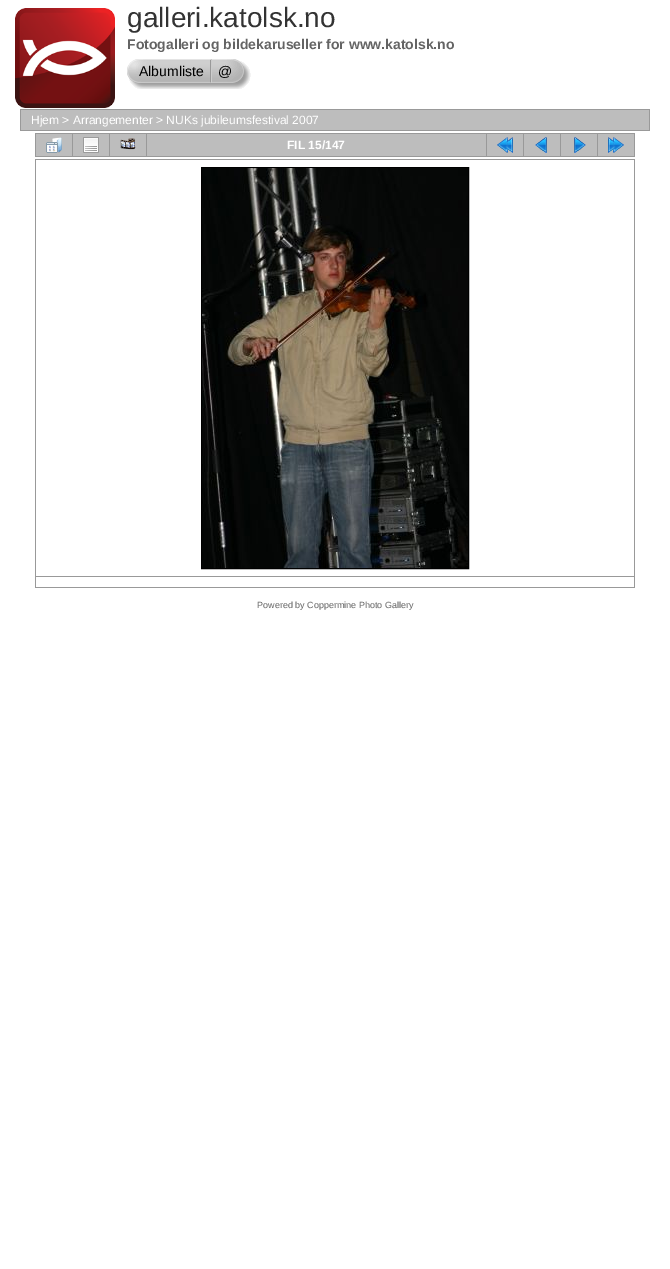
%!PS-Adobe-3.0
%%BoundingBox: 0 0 670 1269
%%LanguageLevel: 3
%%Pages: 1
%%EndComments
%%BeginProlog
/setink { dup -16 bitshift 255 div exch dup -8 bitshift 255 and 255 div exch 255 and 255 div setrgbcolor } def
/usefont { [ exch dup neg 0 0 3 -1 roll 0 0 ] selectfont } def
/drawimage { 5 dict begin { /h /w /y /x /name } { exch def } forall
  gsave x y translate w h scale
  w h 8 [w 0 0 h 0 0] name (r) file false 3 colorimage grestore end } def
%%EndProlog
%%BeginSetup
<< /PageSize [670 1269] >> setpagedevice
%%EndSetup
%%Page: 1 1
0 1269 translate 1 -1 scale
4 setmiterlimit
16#FFFFFF setink
0 0 670 1269 rectfill
(img1.raw) 15 8 100 100 drawimage
/LiberationSans-Regular 28 usefont
16#333333 setink
127 27 moveto (galleri.katolsk.no) show
/LiberationSans-Bold 14 usefont
16#646464 setink
127 49 moveto (Fotogalleri og bildekaruseller for www.katolsk.no) show
(img2.raw) 127 59 83 30 drawimage
/LiberationSans-Regular 14 usefont
16#000000 setink
139 76 moveto (Albumliste) show
(img3.raw) 210 59 2 30 drawimage
(img4.raw) 212 59 39 30 drawimage
218 76 moveto (@) show
16#999999 setink
20 109 630 22 rectfill
16#BDBDBD setink
21 110 628 20 rectfill
/LiberationSans-Regular 12 usefont
16#FFFFFF setink
31 124 moveto (Hjem > Arrangementer > NUKs jubileumsfestival 2007) show
16#999999 setink
35 133 600 24 rectfill
16#BDBDBD setink
36 134 36 22 rectfill
(img5.raw) 46 137 16 16 drawimage
73 134 36 22 rectfill
(img6.raw) 83 137 16 16 drawimage
110 134 36 22 rectfill
(img7.raw) 120 138 16 12 drawimage
147 134 339 22 rectfill
/LiberationSans-Bold 12 usefont
16#FFFFFF setink
287 149 moveto (FIL 15/147) show
16#BDBDBD setink
487 134 36 22 rectfill
(img8.raw) 497 137 16 16 drawimage
524 134 36 22 rectfill
(img9.raw) 535 137 12 16 drawimage
561 134 36 22 rectfill
(img10.raw) 574 137 12 16 drawimage
598 134 36 22 rectfill
(img11.raw) 608 137 16 16 drawimage
16#999999 setink
35 159 600 429 rectfill
16#FFFFFF setink
36 160 598 416 rectfill
16#000000 setink
201.5 167.5 267 401 rectstroke
(img12.raw) 202 168 266 400 drawimage
16#FFFFFF setink
36 577 598 10 rectfill
/LiberationSans-Regular 9 usefont
16#646464 setink
257 608 moveto (Powered by Coppermine Photo Gallery) show
showpage
%%EOF
